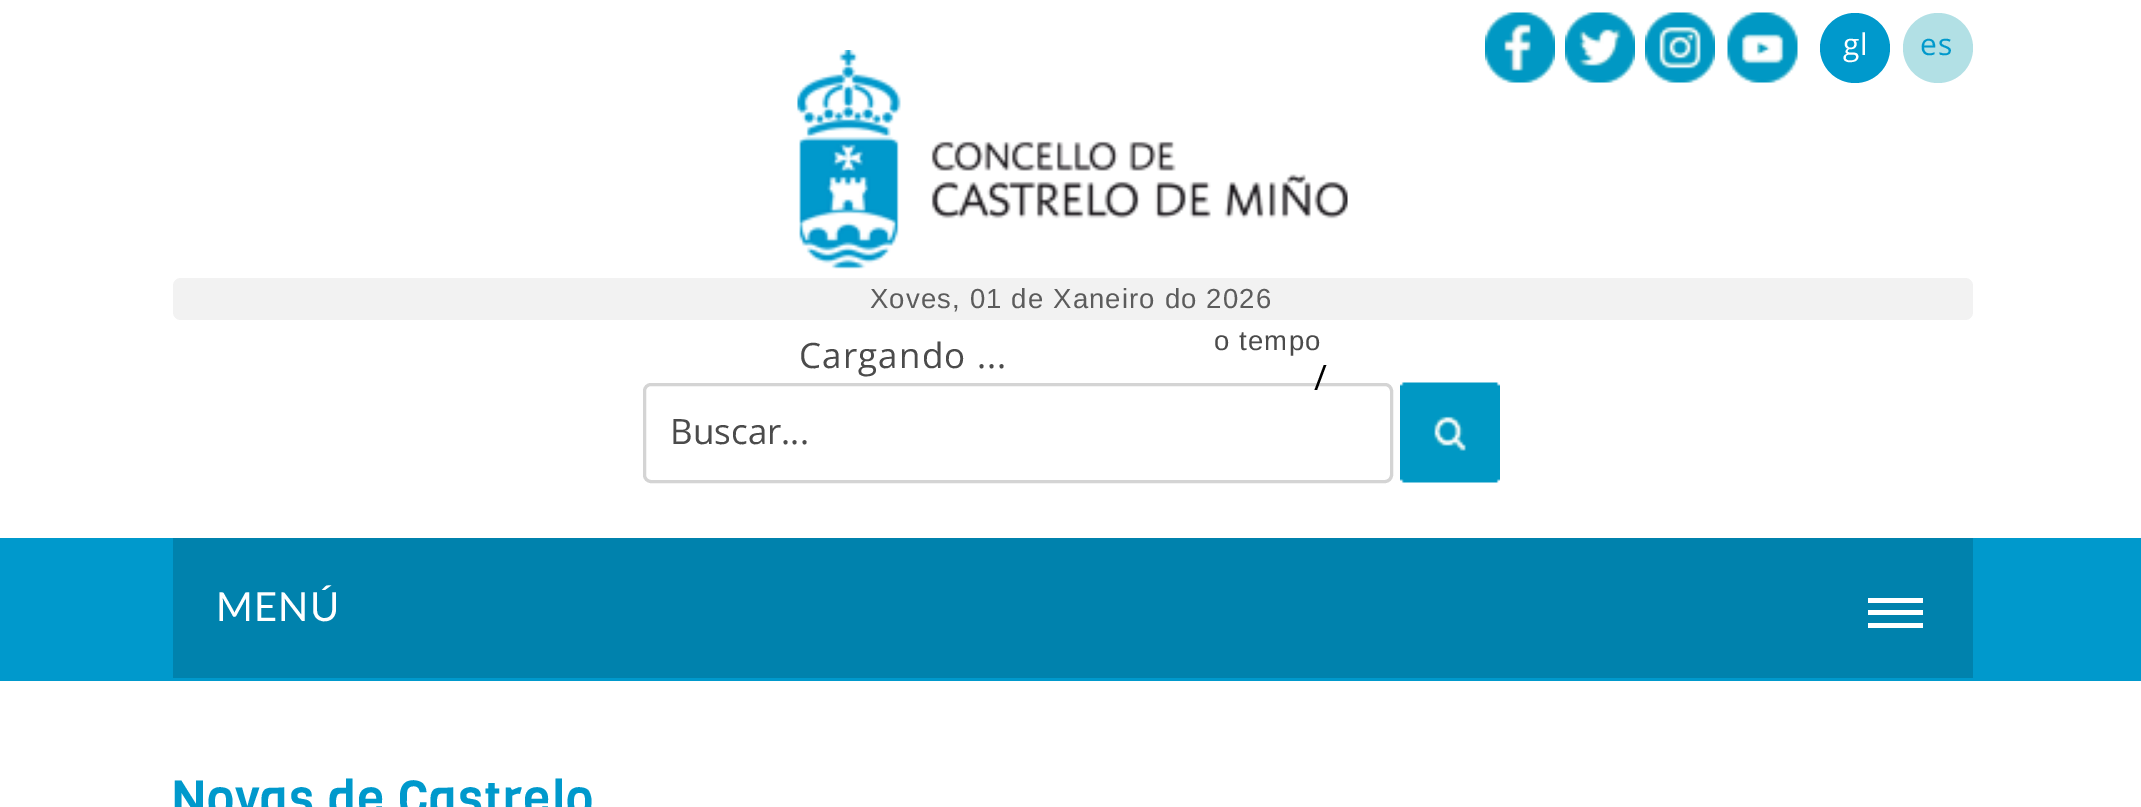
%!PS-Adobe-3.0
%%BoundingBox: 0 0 2141 807
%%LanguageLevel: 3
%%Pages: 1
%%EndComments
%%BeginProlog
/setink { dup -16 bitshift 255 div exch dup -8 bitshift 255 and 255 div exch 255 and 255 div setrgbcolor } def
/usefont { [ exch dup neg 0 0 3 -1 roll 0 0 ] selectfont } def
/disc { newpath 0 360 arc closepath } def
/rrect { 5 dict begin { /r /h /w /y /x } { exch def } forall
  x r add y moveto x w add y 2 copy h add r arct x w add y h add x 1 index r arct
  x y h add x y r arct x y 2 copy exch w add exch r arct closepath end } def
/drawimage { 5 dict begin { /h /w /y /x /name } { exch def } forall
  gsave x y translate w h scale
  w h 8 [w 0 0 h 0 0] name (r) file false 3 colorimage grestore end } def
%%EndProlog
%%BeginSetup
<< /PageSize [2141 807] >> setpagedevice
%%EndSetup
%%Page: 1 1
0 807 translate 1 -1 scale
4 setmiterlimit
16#FFFFFF setink
0 0 2141 807 rectfill
(img1.raw) 797 50 551 219 drawimage
(img2.raw) 1485 12 70 71 drawimage
(img3.raw) 1565 12 70 71 drawimage
(img4.raw) 1645 12 70 71 drawimage
(img5.raw) 1727 12 71 71 drawimage
16#0099CC setink
1855 48 35 disc fill
/OpenSans-Regular 30 usefont
16#FFFFFF setink
1843 55 moveto 1.15 0 (gl) ashow
16#B2E0E5 setink
1938 48 35 disc fill
16#0099CC setink
1920 55 moveto 1.15 0 (es) ashow
16#F2F2F2 setink
173 278 1800 42 8 rrect fill
/LiberationSans-Regular 27.5 usefont
16#5C5C5C setink
870 308 moveto 1.15 0 (Xoves, 01 de Xaneiro do 2026) ashow
/OpenSans-Regular 35 usefont
16#4B4B4B setink
799 368 moveto 1.15 0 (Cargando ...) ashow
/LiberationSans-Regular 27.5 usefont
1214 350 moveto 1.15 0 (o tempo) ashow
16#D4D4D4 setink
3 setlinewidth
644.5 384.5 747 97 6.5 rrect stroke
/OpenSans-Regular 35 usefont
16#000000 setink
1314 390 moveto 1.15 0 (/) ashow
16#4B4B4B setink
670 444 moveto (Buscar...) show
(img6.raw) 1400 382 100 101 drawimage
16#0099CC setink
0 538 2141 143 rectfill
16#0082AD setink
173 538 1800 140 rectfill
/Lato-Regular 40 usefont
16#FFFFFF setink
216 621 moveto 1.15 0 (MENÚ) ashow
[
    [1868 598 55 5 16#FFFFFF]
    [1868 610 55 5 16#FFFFFF]
    [1868 623 55 5 16#FFFFFF]
] { aload pop setink rectfill } forall
/Viga-Regular 50 usefont
16#0099CC setink
171 816 moveto 1.15 0 (Novas de Castrelo) ashow
showpage
%%EOF
